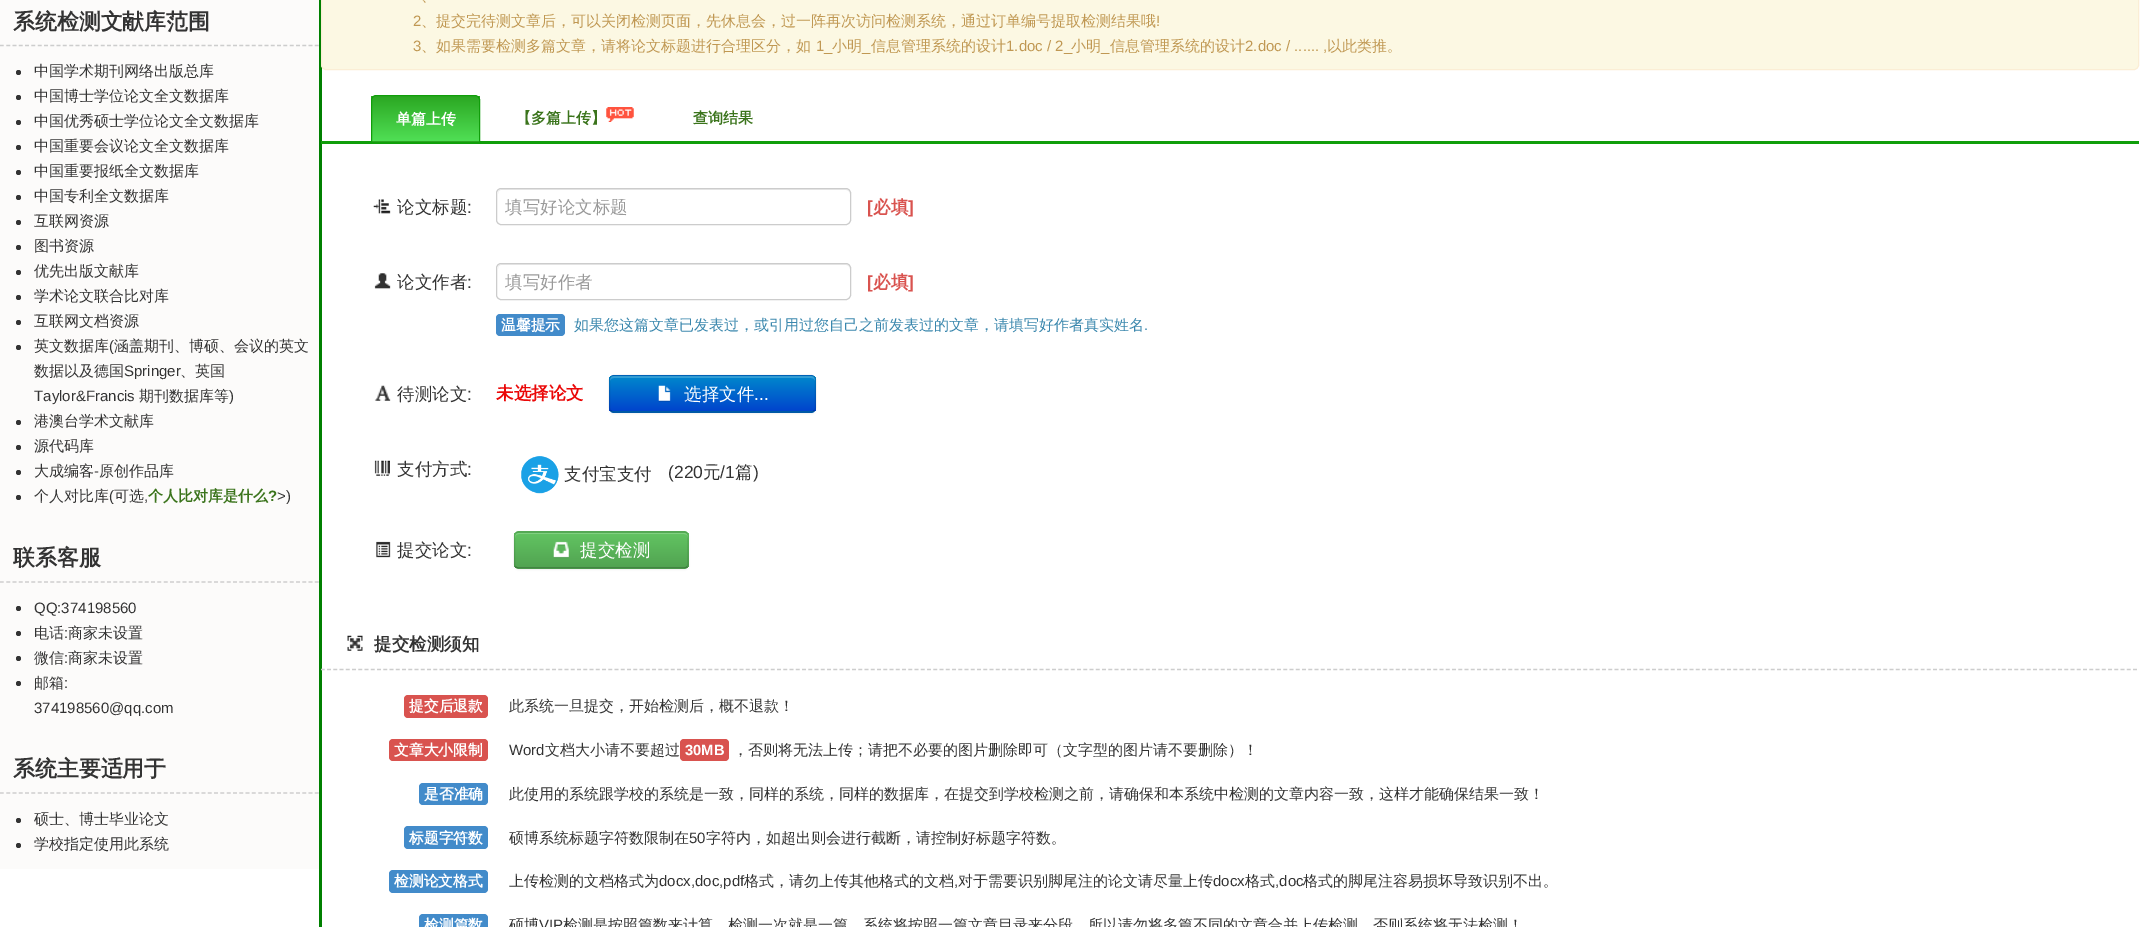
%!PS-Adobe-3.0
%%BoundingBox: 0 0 2141 927
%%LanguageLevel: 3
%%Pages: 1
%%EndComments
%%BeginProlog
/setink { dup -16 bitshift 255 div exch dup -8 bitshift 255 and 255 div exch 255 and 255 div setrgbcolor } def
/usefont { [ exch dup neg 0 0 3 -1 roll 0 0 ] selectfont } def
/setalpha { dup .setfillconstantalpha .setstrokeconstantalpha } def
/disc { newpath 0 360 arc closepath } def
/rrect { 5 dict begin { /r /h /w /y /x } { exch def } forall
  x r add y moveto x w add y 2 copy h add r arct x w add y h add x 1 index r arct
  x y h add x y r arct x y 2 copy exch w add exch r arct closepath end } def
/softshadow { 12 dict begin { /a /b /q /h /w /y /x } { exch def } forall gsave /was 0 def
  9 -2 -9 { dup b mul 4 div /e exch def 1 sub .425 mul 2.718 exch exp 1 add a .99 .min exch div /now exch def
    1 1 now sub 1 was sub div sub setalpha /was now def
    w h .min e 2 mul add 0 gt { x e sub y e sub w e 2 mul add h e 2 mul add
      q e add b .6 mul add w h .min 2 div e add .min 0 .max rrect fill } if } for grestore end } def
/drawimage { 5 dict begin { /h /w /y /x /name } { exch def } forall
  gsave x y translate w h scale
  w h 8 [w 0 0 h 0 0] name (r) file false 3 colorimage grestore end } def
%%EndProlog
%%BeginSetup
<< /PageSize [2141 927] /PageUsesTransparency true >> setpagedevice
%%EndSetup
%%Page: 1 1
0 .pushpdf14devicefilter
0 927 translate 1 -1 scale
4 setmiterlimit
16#FFFFFF setink
0 0 2141 927 rectfill
16#FCFBFA setink
0 0 319 869 rectfill
16#CDCDCD setink
1.2 setlinewidth
[3.75 2.55] 0 setdash
0 45.5 moveto 319 45.5 lineto stroke
/WenQuanYiZenHei-Bold 21.9 usefont
16#333333 setink
13 29 moveto (系统检测文献库范围) show
18.5 72.5 2.5 disc fill
/WenQuanYiZenHei-Medium 15 usefont
34 76 moveto (中国学术期刊网络出版总库) show
18.5 97.5 2.5 disc fill
34 101 moveto (中国博士学位论文全文数据库) show
18.5 122.5 2.5 disc fill
34 126 moveto (中国优秀硕士学位论文全文数据库) show
18.5 147.5 2.5 disc fill
34 151 moveto (中国重要会议论文全文数据库) show
18.5 172.5 2.5 disc fill
34 176 moveto (中国重要报纸全文数据库) show
18.5 197.5 2.5 disc fill
34 201 moveto (中国专利全文数据库) show
18.5 222.5 2.5 disc fill
34 226 moveto (互联网资源) show
18.5 247.5 2.5 disc fill
34 251 moveto (图书资源) show
18.5 272.5 2.5 disc fill
34 276 moveto (优先出版文献库) show
18.5 297.5 2.5 disc fill
34 301 moveto (学术论文联合比对库) show
18.5 322.5 2.5 disc fill
34 326 moveto (互联网文档资源) show
18.5 347.5 2.5 disc fill
34 351 moveto (英文数据库) show
/LiberationSans-Regular 15 usefont
109 351 moveto (\() show
/WenQuanYiZenHei-Medium 15 usefont
114 351 moveto (涵盖期刊、博硕、会议的英文) show
34 376 moveto (数据以及德国) show
/LiberationSans-Regular 15 usefont
124 376 moveto (Springer) show
/WenQuanYiZenHei-Medium 15 usefont
180 376 moveto (、英国) show
/LiberationSans-Regular 15 usefont
34 401 moveto (Taylor&Francis) show
/WenQuanYiZenHei-Medium 15 usefont
139 401 moveto (期刊数据库等) show
/LiberationSans-Regular 15 usefont
229 401 moveto (\)) show
18.5 422.5 2.5 disc fill
/WenQuanYiZenHei-Medium 15 usefont
34 426 moveto (港澳台学术文献库) show
18.5 447.5 2.5 disc fill
34 451 moveto (源代码库) show
18.5 472.5 2.5 disc fill
34 476 moveto (大成编客) show
/LiberationSans-Regular 15 usefont
94 476 moveto (-) show
/WenQuanYiZenHei-Medium 15 usefont
99 476 moveto (原创作品库) show
18.5 497.5 2.5 disc fill
34 501 moveto (个人对比库) show
/LiberationSans-Regular 15 usefont
109 501 moveto (\() show
/WenQuanYiZenHei-Medium 15 usefont
114 501 moveto (可选) show
/WenQuanYiZenHei-Bold 15 usefont
16#3B741C setink
148 501 moveto (个人比对库是什么) show
/LiberationSans-Bold 15 usefont
268 501 moveto (?) show
/LiberationSans-Regular 15 usefont
16#333333 setink
277 501 moveto (>\)) show
144 501 moveto (,) show
16#CDCDCD setink
0 582 moveto 319 582 lineto stroke
/WenQuanYiZenHei-Bold 21.9 usefont
16#333333 setink
13 565 moveto (联系客服) show
18.5 608.5 2.5 disc fill
/LiberationSans-Regular 15 usefont
34 613 moveto (QQ:374198560) show
18.5 633.5 2.5 disc fill
/WenQuanYiZenHei-Medium 15 usefont
34 638 moveto (电话) show
/LiberationSans-Regular 15 usefont
64 638 moveto (:) show
/WenQuanYiZenHei-Medium 15 usefont
68 638 moveto (商家未设置) show
18.5 658.5 2.5 disc fill
34 663 moveto (微信) show
/LiberationSans-Regular 15 usefont
64 663 moveto (:) show
/WenQuanYiZenHei-Medium 15 usefont
68 663 moveto (商家未设置) show
18.5 683.5 2.5 disc fill
34 688 moveto (邮箱) show
/LiberationSans-Regular 15 usefont
64 688 moveto (:) show
34 713 moveto (374198560@qq.com) show
16#CDCDCD setink
0 793 moveto 319 793 lineto stroke
/WenQuanYiZenHei-Bold 21.9 usefont
16#333333 setink
13 776 moveto (系统主要适用于) show
18.5 820.5 2.5 disc fill
/WenQuanYiZenHei-Medium 15 usefont
34 824 moveto (硕士、博士毕业论文) show
18.5 845.5 2.5 disc fill
34 849 moveto (学校指定使用此系统) show
16#008000 setink
319 0 3 927 rectfill
16#FCF8E3 setink
321.5 -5.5 1817 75 4.5 rrect gsave fill grestore
16#FBEED5 setink
1 setlinewidth
[] 0 setdash
stroke
16#C09853 setink
421 1 moveto (、) show
/LiberationSans-Regular 15 usefont
413 26 moveto (2) show
/WenQuanYiZenHei-Medium 15 usefont
421 26 moveto (、提交完待测文章后，可以关闭检测页面，先休息会，过一阵再次访问检测系统，通过订单编号提取检测结果哦) show
/LiberationSans-Regular 15 usefont
1156 26 moveto (!) show
413 51 moveto (3) show
/WenQuanYiZenHei-Medium 15 usefont
421 51 moveto (、如果需要检测多篇文章，请将论文标题进行合理区分，如) show
/LiberationSans-Regular 15 usefont
816 51 moveto (1_) show
/WenQuanYiZenHei-Medium 15 usefont
832 51 moveto (小明) show
871 51 moveto (信息管理系统的设计) show
/LiberationSans-Regular 15 usefont
1006 51 moveto (1.doc / 2_) show
/WenQuanYiZenHei-Medium 15 usefont
1071 51 moveto (小明) show
1110 51 moveto (信息管理系统的设计) show
/LiberationSans-Regular 15 usefont
1245 51 moveto (2.doc / ...... ,) show
/WenQuanYiZenHei-Medium 15 usefont
1327 51 moveto (以此类推。) show
/LiberationSans-Regular 15 usefont
862 51 moveto (_) show
1101 51 moveto (_) show
16#109E0A setink
321 141 1818 3 rectfill
gsave
376 95 moveto 475 95 lineto 478 95 480 97 480 100 curveto 480 143 lineto 371 143 lineto 371 100 lineto 371 97 373 95 376 95 curveto closepath clip newpath
gsave 371 96 moveto 480 96 lineto 480 141 lineto 371 141 lineto closepath clip newpath
<< /ShadingType 2 /ColorSpace /DeviceRGB /Coords [426 141 426 73] /Extend [true true] /Function << /FunctionType 2 /Domain [0 1] /C0 [0.314 0.875 0.333] /C1 [0.094 0.545 0.031] /N 1 >> >> shfill grestore
grestore
gsave 371 141 moveto 480 141 lineto 480 142 lineto 371 142 lineto closepath clip newpath
<< /ShadingType 2 /ColorSpace /DeviceRGB /Coords [426 186 426 118] /Extend [true true] /Function << /FunctionType 2 /Domain [0 1] /C0 [0.314 0.875 0.333] /C1 [0.094 0.545 0.031] /N 1 >> >> shfill grestore
376 95.5 moveto 475 95.5 lineto 477.5 95.5 479.5 97.5 479.5 100 curveto 479.5 142.5 lineto 371.5 142.5 lineto 371.5 100 lineto 371.5 97.5 373.5 95.5 376 95.5 curveto closepath stroke
/WenQuanYiZenHei-Bold 15 usefont
16#FFFFFF setink
396 124 moveto (单篇上传) show
16#3B741C setink
516 123 moveto (【多篇上传】) show
(img1.raw) 606 107 28 15 drawimage
693 123 moveto (查询结果) show
(img2.raw) 373 199 18 15 drawimage
/WenQuanYiZenHei-Medium 17.5 usefont
16#333333 setink
397 213 moveto (论文标题) show
/LiberationSans-Regular 17.5 usefont
467 213 moveto (:) show
16#ECECEC setink
501 190 moveto 846 190 lineto 848 190 850 192 850 194 curveto 849 191 lineto 847 189 lineto 502 189 lineto 499 189 498 191 498 194 curveto 498 192 499 190 501 190 curveto closepath fill
16#CCCCCC setink
496.5 188.5 354 36 4.5 rrect stroke
/WenQuanYiZenHei-Medium 17.5 usefont
16#999999 setink
505 213 moveto (填写好论文标题) show
/LiberationSans-Bold 17.5 usefont
16#D9534F setink
867 213 moveto ([) show
/WenQuanYiZenHei-Bold 17.5 usefont
873 213 moveto (必填) show
/LiberationSans-Bold 17.5 usefont
908 213 moveto (]) show
(img3.raw) 374 273 17 16 drawimage
/WenQuanYiZenHei-Medium 17.5 usefont
16#333333 setink
397 288 moveto (论文作者) show
/LiberationSans-Regular 17.5 usefont
467 288 moveto (:) show
16#ECECEC setink
501 265 moveto 846 265 lineto 848 265 850 267 850 269 curveto 849 266 lineto 847 264 lineto 502 264 lineto 499 264 498 266 498 269 curveto 498 267 499 265 501 265 curveto closepath fill
16#CCCCCC setink
496.5 263.5 354 36 4.5 rrect stroke
/WenQuanYiZenHei-Medium 17.5 usefont
16#999999 setink
505 288 moveto (填写好作者) show
/LiberationSans-Bold 17.5 usefont
16#D9534F setink
867 288 moveto ([) show
/WenQuanYiZenHei-Bold 17.5 usefont
873 288 moveto (必填) show
/LiberationSans-Bold 17.5 usefont
908 288 moveto (]) show
16#428BCA setink
496 314 69 22 4 rrect fill
/WenQuanYiZenHei-Bold 14.75 usefont
16#FFFFFF setink
501 330 moveto (温馨提示) show
/WenQuanYiZenHei-Medium 15 usefont
16#3A87AD setink
574 330 moveto (如果您这篇文章已发表过，或引用过您自己之前发表过的文章，请填写好作者真实姓名) show
/LiberationSans-Regular 15 usefont
1144 330 moveto (.) show
(img4.raw) 374 385 17 16 drawimage
/WenQuanYiZenHei-Medium 17.5 usefont
16#333333 setink
397 400 moveto (待测论文) show
/LiberationSans-Regular 17.5 usefont
467 400 moveto (:) show
/WenQuanYiZenHei-Bold 17.5 usefont
16#EA0808 setink
496 399 moveto (未选择论文) show
16#000000 setink
609 376 207 38 5 1 0.05 softshadow
16#006DCC setink
609 375 207 38 5 rrect fill
gsave
609 375 207 38 5 rrect clip newpath
gsave 609 376 moveto 816 376 lineto 816 411 lineto 609 411 lineto closepath clip newpath
<< /ShadingType 2 /ColorSpace /DeviceRGB /Coords [713 376 713 411] /Extend [true true] /Function << /FunctionType 2 /Domain [0 1] /C0 [0 0.533 0.8] /C1 [0 0.267 0.8] /N 1 >> >> shfill grestore
grestore
0.2 setalpha
16#FFFFFF setink
614 378 moveto 811 378 lineto 813 378 815 379 815 381 curveto 815 380 lineto 815 378 813 376 811 376 curveto 614 376 lineto 612 376 610 378 610 380 curveto 610 381 lineto 610 379 612 378 614 378 curveto closepath fill
0.25 setalpha
16#000000 setink
1.2 setlinewidth
814.5 410.5 moveto 813.5 411.5 812.5 412 811 412 curveto 614 412 lineto 612.5 412 611.5 411.5 610.5 410.5 curveto stroke
0.1 setalpha
610.5 410.5 moveto 610 410 609.5 408.5 609.5 407.5 curveto 609.5 380 lineto 609.5 379 610 377.5 610.5 377 curveto 611.5 376 612.5 375.5 614 375.5 curveto 811 375.5 lineto 812.5 375.5 813.5 376 814.5 377 curveto 815 377.5 815.5 379 815.5 380 curveto 815.5 407.5 lineto 815.5 408.5 815 410 814.5 410.5 curveto stroke
1 setalpha
(img5.raw) 658 385 13 17 drawimage
/WenQuanYiZenHei-Medium 17.5 usefont
16#FFFFFF setink
684 400 moveto (选择文件) show
/LiberationSans-Regular 17.5 usefont
754 400 moveto (...) show
(img6.raw) 374 460 16 16 drawimage
/WenQuanYiZenHei-Medium 17.5 usefont
16#333333 setink
397 475 moveto (支付方式) show
/LiberationSans-Regular 17.5 usefont
467 475 moveto (:) show
(img7.raw) 521 456 38 38 drawimage
/WenQuanYiZenHei-Medium 17.5 usefont
564 480 moveto (支付宝支付) show
/LiberationSans-Regular 17.5 usefont
668 478 moveto (\(220) show
/WenQuanYiZenHei-Medium 17.5 usefont
703 478 moveto (元) show
/LiberationSans-Regular 17.5 usefont
720 478 moveto (/1) show
/WenQuanYiZenHei-Medium 17.5 usefont
735 478 moveto (篇) show
/LiberationSans-Regular 17.5 usefont
753 478 moveto (\)) show
(img8.raw) 376 541 15 17 drawimage
/WenQuanYiZenHei-Medium 17.5 usefont
397 556 moveto (提交论文) show
/LiberationSans-Regular 17.5 usefont
467 556 moveto (:) show
16#000000 setink
514 533 175 37 5 1 0.05 softshadow
16#5BB75B setink
514 531 175 38 5 rrect fill
gsave
514 531 175 38 5 rrect clip newpath
gsave 514 533 moveto 689 533 lineto 689 568 lineto 514 568 lineto closepath clip newpath
<< /ShadingType 2 /ColorSpace /DeviceRGB /Coords [601 533 601 568] /Extend [true true] /Function << /FunctionType 2 /Domain [0 1] /C0 [0.384 0.769 0.384] /C1 [0.318 0.639 0.318] /N 1 >> >> shfill grestore
grestore
16#81D081 setink
519 534 moveto 684 534 lineto 686 534 688 535 688 538 curveto 688 537 lineto 688 535 686 533 684 533 curveto 519 533 lineto 517 533 515 535 515 537 curveto 515 538 lineto 515 535 517 534 519 534 curveto closepath fill
0.25 setalpha
16#000000 setink
687 567 moveto 686 567.5 685 568 684 568 curveto 519 568 lineto 517.5 568 516.5 567.5 515.5 567 curveto stroke
0.1 setalpha
515.5 567 moveto 515 566 514.5 565 514.5 564 curveto 514.5 536 lineto 514.5 535 515 534 515.5 533 curveto 516.5 532.5 517.5 532 519 532 curveto 684 532 lineto 685 532 686 532.5 687 533 curveto 687.5 534 688 535 688 536 curveto 688 564 lineto 688 565 687.5 566 687 567 curveto stroke
1 setalpha
(img9.raw) 553 541 16 18 drawimage
/WenQuanYiZenHei-Medium 17.5 usefont
16#FFFFFF setink
580 556 moveto (提交检测) show
16#CDCDCD setink
[3.75 2.5] 0 setdash
321 669.5 moveto 2139 669.5 lineto stroke
(img10.raw) 347 635 16 16 drawimage
/WenQuanYiZenHei-Bold 17.5 usefont
16#333333 setink
374 650 moveto (提交检测须知) show
16#D9534F setink
404 695 84 23 4 rrect fill
/WenQuanYiZenHei-Bold 14.75 usefont
16#FFFFFF setink
409 711 moveto (提交后退款) show
/WenQuanYiZenHei-Medium 15 usefont
16#333333 setink
509 711 moveto (此系统一旦提交，开始检测后，概不退款！) show
16#D9534F setink
389 739 99 22 4 rrect fill
/WenQuanYiZenHei-Bold 14.75 usefont
16#FFFFFF setink
394 755 moveto (文章大小限制) show
/LiberationSans-Regular 15 usefont
16#333333 setink
509 755 moveto (Word) show
/WenQuanYiZenHei-Medium 15 usefont
545 755 moveto (文档大小请不要超过) show
16#D9534F setink
680 739 49 22 4 rrect fill
/LiberationSans-Bold 14.75 usefont
16#FFFFFF setink
685 755 moveto (30MB) show
/WenQuanYiZenHei-Medium 15 usefont
16#333333 setink
733 755 moveto (，否则将无法上传；请把不必要的图片删除即可（文字型的图片请不要删除）！) show
16#428BCA setink
419 783 69 22 4 rrect fill
/WenQuanYiZenHei-Bold 14.75 usefont
16#FFFFFF setink
424 799 moveto (是否准确) show
/WenQuanYiZenHei-Medium 15 usefont
16#333333 setink
509 799 moveto (此使用的系统跟学校的系统是一致，同样的系统，同样的数据库，在提交到学校检测之前，请确保和本系统中检测的文章内容一致，这样才能确保结果一致！) show
16#428BCA setink
404 826 84 23 4 rrect fill
/WenQuanYiZenHei-Bold 14.75 usefont
16#FFFFFF setink
409 843 moveto (标题字符数) show
/WenQuanYiZenHei-Medium 15 usefont
16#333333 setink
509 843 moveto (硕博系统标题字符数限制在) show
/LiberationSans-Regular 15 usefont
689 843 moveto (50) show
/WenQuanYiZenHei-Medium 15 usefont
706 843 moveto (字符内，如超出则会进行截断，请控制好标题字符数。) show
16#428BCA setink
389 870 99 23 4 rrect fill
/WenQuanYiZenHei-Bold 14.75 usefont
16#FFFFFF setink
394 886 moveto (检测论文格式) show
/WenQuanYiZenHei-Medium 15 usefont
16#333333 setink
509 886 moveto (上传检测的文档格式为) show
/LiberationSans-Regular 15 usefont
659 886 moveto (docx,doc,pdf) show
/WenQuanYiZenHei-Medium 15 usefont
744 886 moveto (格式，请勿上传其他格式的文档) show
/LiberationSans-Regular 15 usefont
954 886 moveto (,) show
/WenQuanYiZenHei-Medium 15 usefont
958 886 moveto (对于需要识别脚尾注的论文请尽量上传) show
/LiberationSans-Regular 15 usefont
1213 886 moveto (docx) show
/WenQuanYiZenHei-Medium 15 usefont
1245 886 moveto (格式) show
/LiberationSans-Regular 15 usefont
1275 886 moveto (,doc) show
/WenQuanYiZenHei-Medium 15 usefont
1303 886 moveto (格式的脚尾注容易损坏导致识别不出。) show
16#428BCA setink
419 914 69 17 4 rrect fill
/WenQuanYiZenHei-Bold 14.75 usefont
16#FFFFFF setink
424 930 moveto (检测篇数) show
/WenQuanYiZenHei-Medium 15 usefont
16#333333 setink
509 930 moveto (硕博) show
/LiberationSans-Regular 15 usefont
539 930 moveto (VIP) show
/WenQuanYiZenHei-Medium 15 usefont
563 930 moveto (检测是按照篇数来计算，检测一次就是一篇，系统将按照一篇文章目录来分段，所以请勿将多篇不同的文章合并上传检测，否则系统将无法检测！) show
.poppdf14devicefilter showpage
%%EOF
